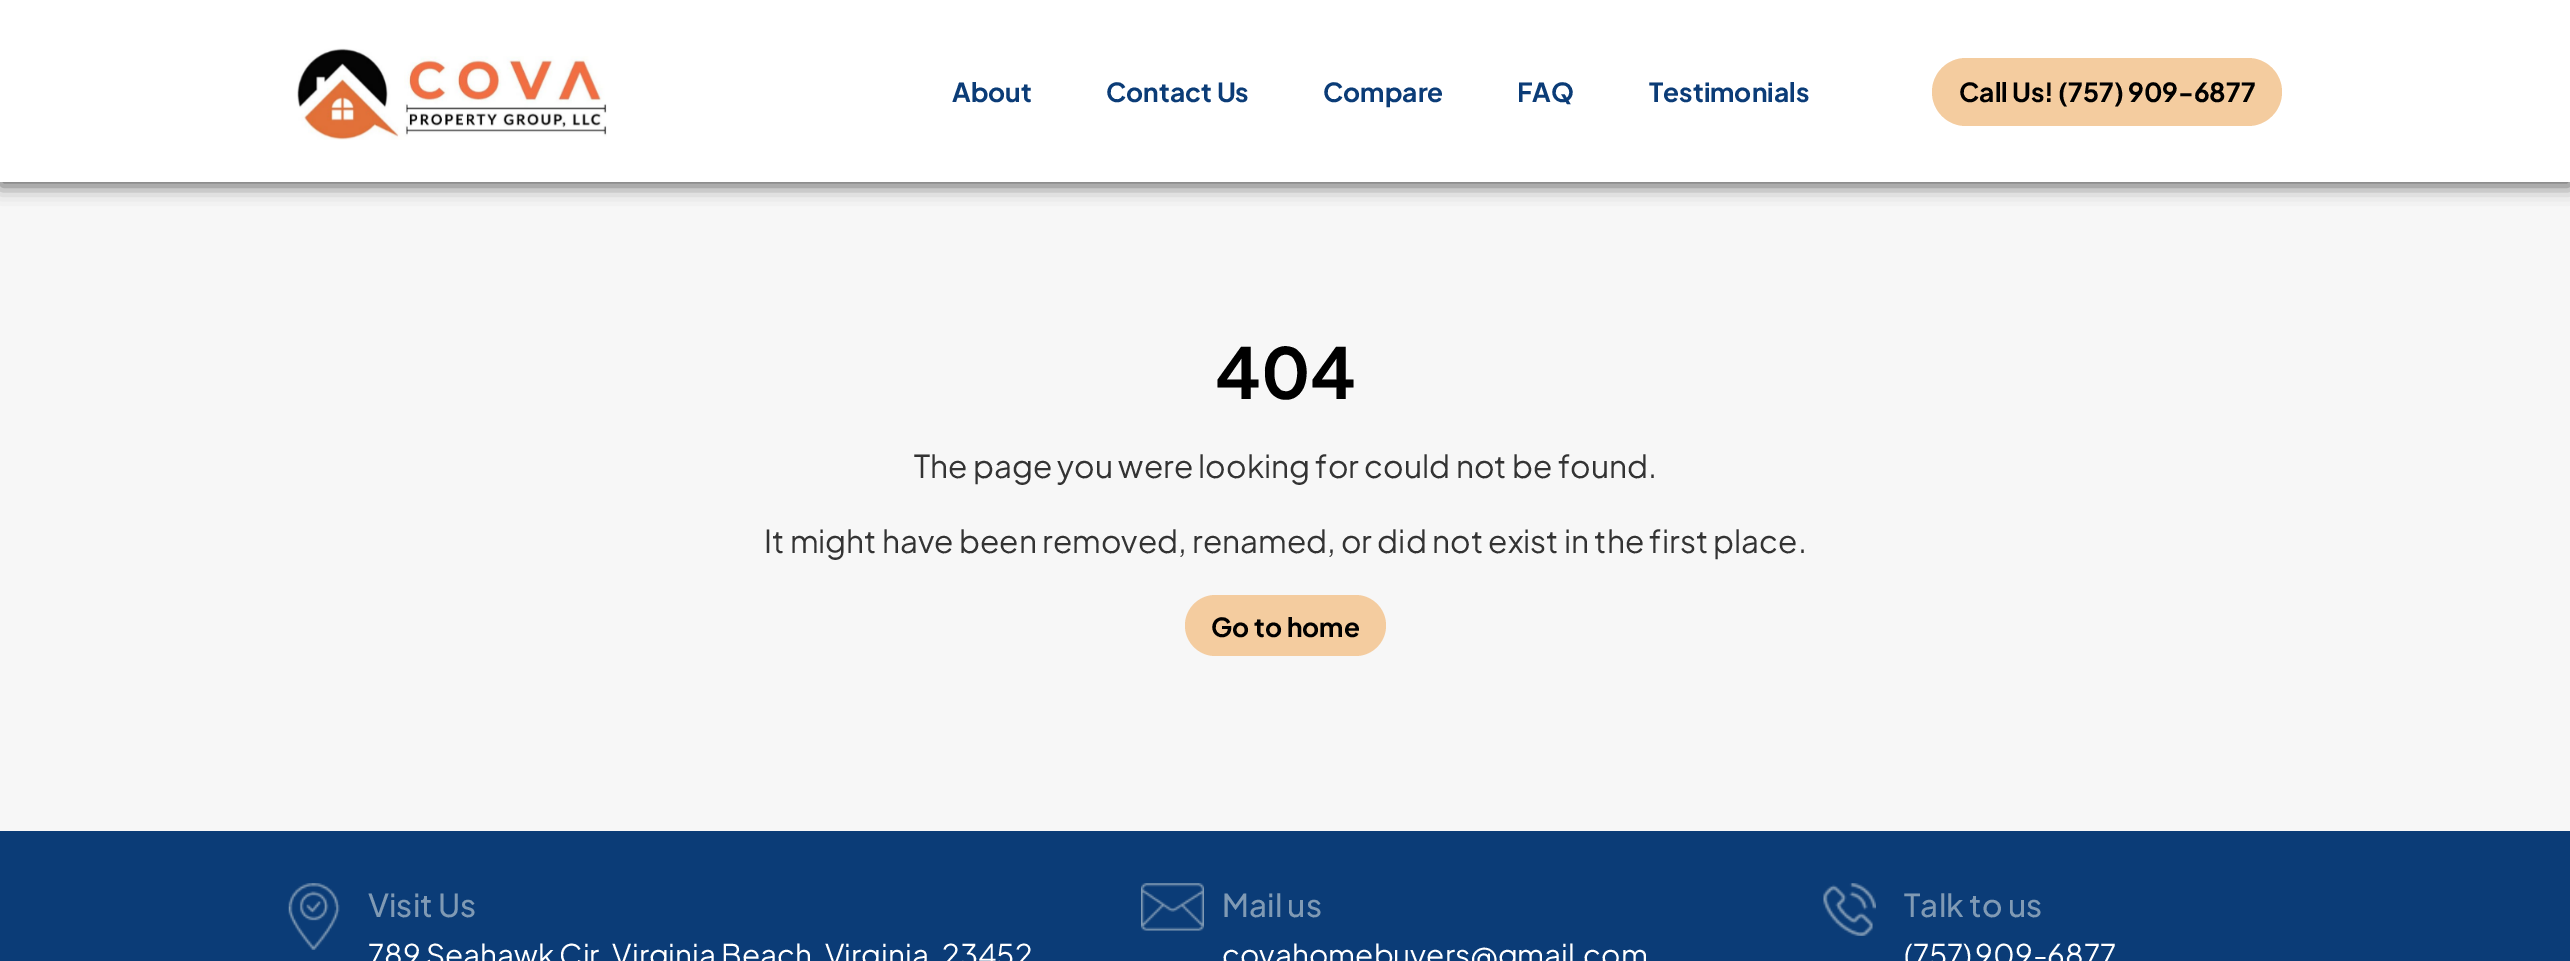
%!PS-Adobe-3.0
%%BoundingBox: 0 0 2570 961
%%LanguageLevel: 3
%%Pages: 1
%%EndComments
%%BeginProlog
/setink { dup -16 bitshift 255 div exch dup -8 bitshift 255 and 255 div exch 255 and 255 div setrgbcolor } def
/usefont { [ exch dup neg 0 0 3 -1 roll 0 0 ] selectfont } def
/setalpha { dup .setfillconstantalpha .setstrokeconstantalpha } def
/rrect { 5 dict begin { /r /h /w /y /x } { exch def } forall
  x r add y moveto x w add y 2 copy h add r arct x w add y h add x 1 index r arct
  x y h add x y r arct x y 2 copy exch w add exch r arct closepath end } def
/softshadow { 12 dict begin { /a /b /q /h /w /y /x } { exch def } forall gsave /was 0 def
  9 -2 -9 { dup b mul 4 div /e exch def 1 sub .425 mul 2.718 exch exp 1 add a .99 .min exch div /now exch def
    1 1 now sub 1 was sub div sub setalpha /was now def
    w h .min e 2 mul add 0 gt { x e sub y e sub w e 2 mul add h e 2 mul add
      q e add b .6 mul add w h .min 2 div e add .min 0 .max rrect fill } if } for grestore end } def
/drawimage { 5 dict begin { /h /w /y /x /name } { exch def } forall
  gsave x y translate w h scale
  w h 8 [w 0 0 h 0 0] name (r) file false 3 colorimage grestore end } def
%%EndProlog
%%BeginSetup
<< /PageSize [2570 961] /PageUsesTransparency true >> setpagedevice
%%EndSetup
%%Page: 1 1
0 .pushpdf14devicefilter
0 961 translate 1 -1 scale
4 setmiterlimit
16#0B3C77 setink
0 0 2570 961 rectfill
16#F7F7F7 setink
0 182 2570 649 rectfill
16#5E5E5E setink
0 4 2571 182 0 9 1 softshadow
16#FFFFFF setink
0 0 2570 182 rectfill
(img1.raw) 297 48 310 92 drawimage
/PlusJakartaSans-Bold 26.25 usefont
16#0B3C77 setink
[
    [(About) 952 102]
    [(Contact Us) 1106 102]
    [(Compare) 1323 102]
    [(FAQ) 1517 102]
    [(Testimonials) 1649 102]
] { aload pop moveto show } forall
16#F4CC9F setink
1932 58 350 68 34 rrect fill
16#000000 setink
1959 102 moveto -0.5 0 32 (Call Us! \(757\) 909-6877) widthshow
/PlusJakartaSans-Bold 70 usefont
1215 399 moveto (404) show
/PlusJakartaSans-Regular 31.5 usefont
16#333333 setink
914 478 moveto (The page you were looking for could not be found.) show
764 553 moveto (It might have been removed, renamed, or did not exist in the first place.) show
16#F4CC9F setink
1185 595 201 61 30.5 rrect fill
/PlusJakartaSans-Bold 26.25 usefont
16#000000 setink
1211 637 moveto (Go to home) show
(img2.raw) 288 883 52 67 drawimage
/PlusJakartaSans-Medium 31.5 usefont
16#809AB4 setink
368 917 moveto (Visit Us) show
/PlusJakartaSans-Regular 29.75 usefont
16#FFFFFF setink
368 966 moveto (789 Seahawk Cir, Virginia Beach, Virginia, 23452) show
(img3.raw) 1141 883 63 48 drawimage
/PlusJakartaSans-Medium 31.5 usefont
16#809AB4 setink
1222 917 moveto (Mail us) show
/PlusJakartaSans-Regular 29.75 usefont
16#FFFFFF setink
1222 966 moveto (covahomebuyers@gmail.com) show
(img4.raw) 1823 883 53 53 drawimage
/PlusJakartaSans-Medium 31.5 usefont
16#809AB4 setink
1904 917 moveto (Talk to us) show
/PlusJakartaSans-Regular 29.75 usefont
16#FFFFFF setink
1904 966 moveto -2 0 32 (\(757\) 909-6877) widthshow
.poppdf14devicefilter showpage
%%EOF
